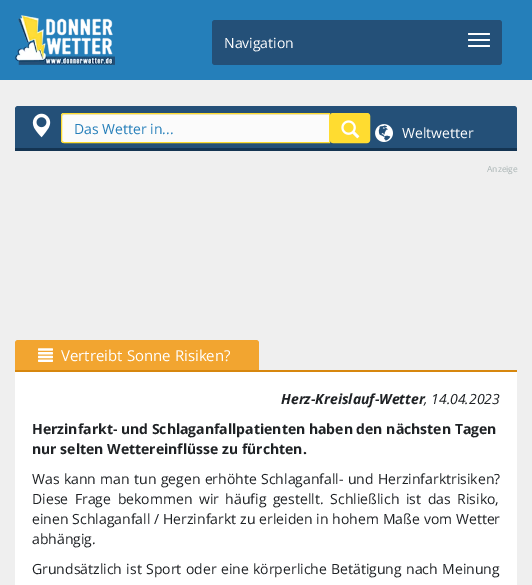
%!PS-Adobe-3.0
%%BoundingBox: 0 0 532 585
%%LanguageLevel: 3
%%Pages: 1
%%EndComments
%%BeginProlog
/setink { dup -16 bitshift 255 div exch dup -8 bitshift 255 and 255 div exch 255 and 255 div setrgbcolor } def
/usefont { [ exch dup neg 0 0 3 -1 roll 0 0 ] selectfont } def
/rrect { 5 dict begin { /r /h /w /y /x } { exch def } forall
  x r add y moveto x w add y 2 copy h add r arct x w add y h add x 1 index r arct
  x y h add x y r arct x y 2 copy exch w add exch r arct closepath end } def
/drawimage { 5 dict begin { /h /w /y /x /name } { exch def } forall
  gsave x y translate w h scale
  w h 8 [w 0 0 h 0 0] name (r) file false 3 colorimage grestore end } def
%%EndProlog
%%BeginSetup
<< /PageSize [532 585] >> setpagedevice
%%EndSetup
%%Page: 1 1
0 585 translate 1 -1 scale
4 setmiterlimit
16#EFEFEF setink
0 0 532 585 rectfill
16#257FBA setink
0 0 532 80 rectfill
(img1.raw) 15 15 100 50 drawimage
16#245078 setink
212 20 290 45 3 rrect fill
/OpenSans-Regular 14 usefont
16#FFFFFF setink
224 48 moveto (Navigation) show
468 33 22 2 1 rrect fill
468 39 22 2 1 rrect fill
468 45 22 2 1 rrect fill
16#143452 setink
15 148 502 3 rectfill
16#245078 setink
18 106 moveto 514 106 lineto 515.5 106 517 107.5 517 109 curveto 517 148 lineto 15 148 lineto 15 109 lineto 15 107.5 16.5 106 18 106 curveto closepath fill
(img2.raw) 32 113 19 25 drawimage
16#FBFBFB setink
64 113 moveto 330 113 lineto 330 143 lineto 64 143 lineto 62.5 143 61 141.5 61 140 curveto 61 116 lineto 61 114.5 62.5 113 64 113 curveto closepath fill
16#E8E8E8 setink
64 115 moveto 329 115 lineto 329 114 lineto 64 114 lineto 63 114 62 115 62 116 curveto 62 116 63 115 64 115 curveto closepath fill
16#FFDC30 setink
64 113.5 moveto 329.5 113.5 lineto 329.5 142.5 lineto 64 142.5 lineto 62.5 142.5 61.5 141.5 61.5 140 curveto 61.5 116 lineto 61.5 114.5 62.5 113.5 64 113.5 curveto closepath stroke
16#257FBA setink
74 134 moveto (Das Wetter in...) show
16#FFDC30 setink
330.5 113.5 39 29 2.5 rrect gsave fill grestore
stroke
(img3.raw) 341 120 19 19 drawimage
(img4.raw) 375 124 18 18 drawimage
16#FFFFFF setink
402 138 moveto (Weltwetter) show
/OpenSans-Regular 8.5 usefont
16#AAB5B5 setink
487 172 moveto (Anzeige) show
16#D7870E setink
15 370 502 2 rectfill
16#F2A530 setink
18 340 moveto 256 340 lineto 257.5 340 259 341.5 259 343 curveto 259 370 lineto 15 370 lineto 15 343 lineto 15 341.5 16.5 340 18 340 curveto closepath fill
(img5.raw) 38 348 15 14 drawimage
/OpenSans-Regular 15 usefont
16#FFFFFF setink
61 361 moveto (Vertreibt Sonne Risiken?) show
15 372 502 213 rectfill
/OpenSans-BoldItalic 14 usefont
16#1F2225 setink
281 404 moveto (Herz-Kreislauf-Wetter) show
/OpenSans-Italic 14 usefont
424 404 moveto (, 14.04.2023) show
/OpenSans-Bold 14 usefont
32 434 moveto (Herzinfarkt- und Schlaganfallpatienten haben den nächsten Tagen) show
32 454 moveto (nur selten Wettereinflüsse zu fürchten.) show
/OpenSans-Regular 14 usefont
32 484 moveto 0.75 0 32 (Was kann man tun gegen erhöhte Schlaganfall- und Herzinfarktrisiken?) widthshow
32 504 moveto 3 0 32 (Diese Frage bekommen wir häufig gestellt. Schließlich ist das Risiko,) widthshow
32 524 moveto 0.25 0 32 (einen Schlaganfall / Herzinfarkt zu erleiden in hohem Maße vom Wetter) widthshow
32 544 moveto (abhängig.) show
32 574 moveto 0.75 0 32 (Grundsätzlich ist Sport oder eine körperliche Betätigung nach Meinung) widthshow
showpage
%%EOF
